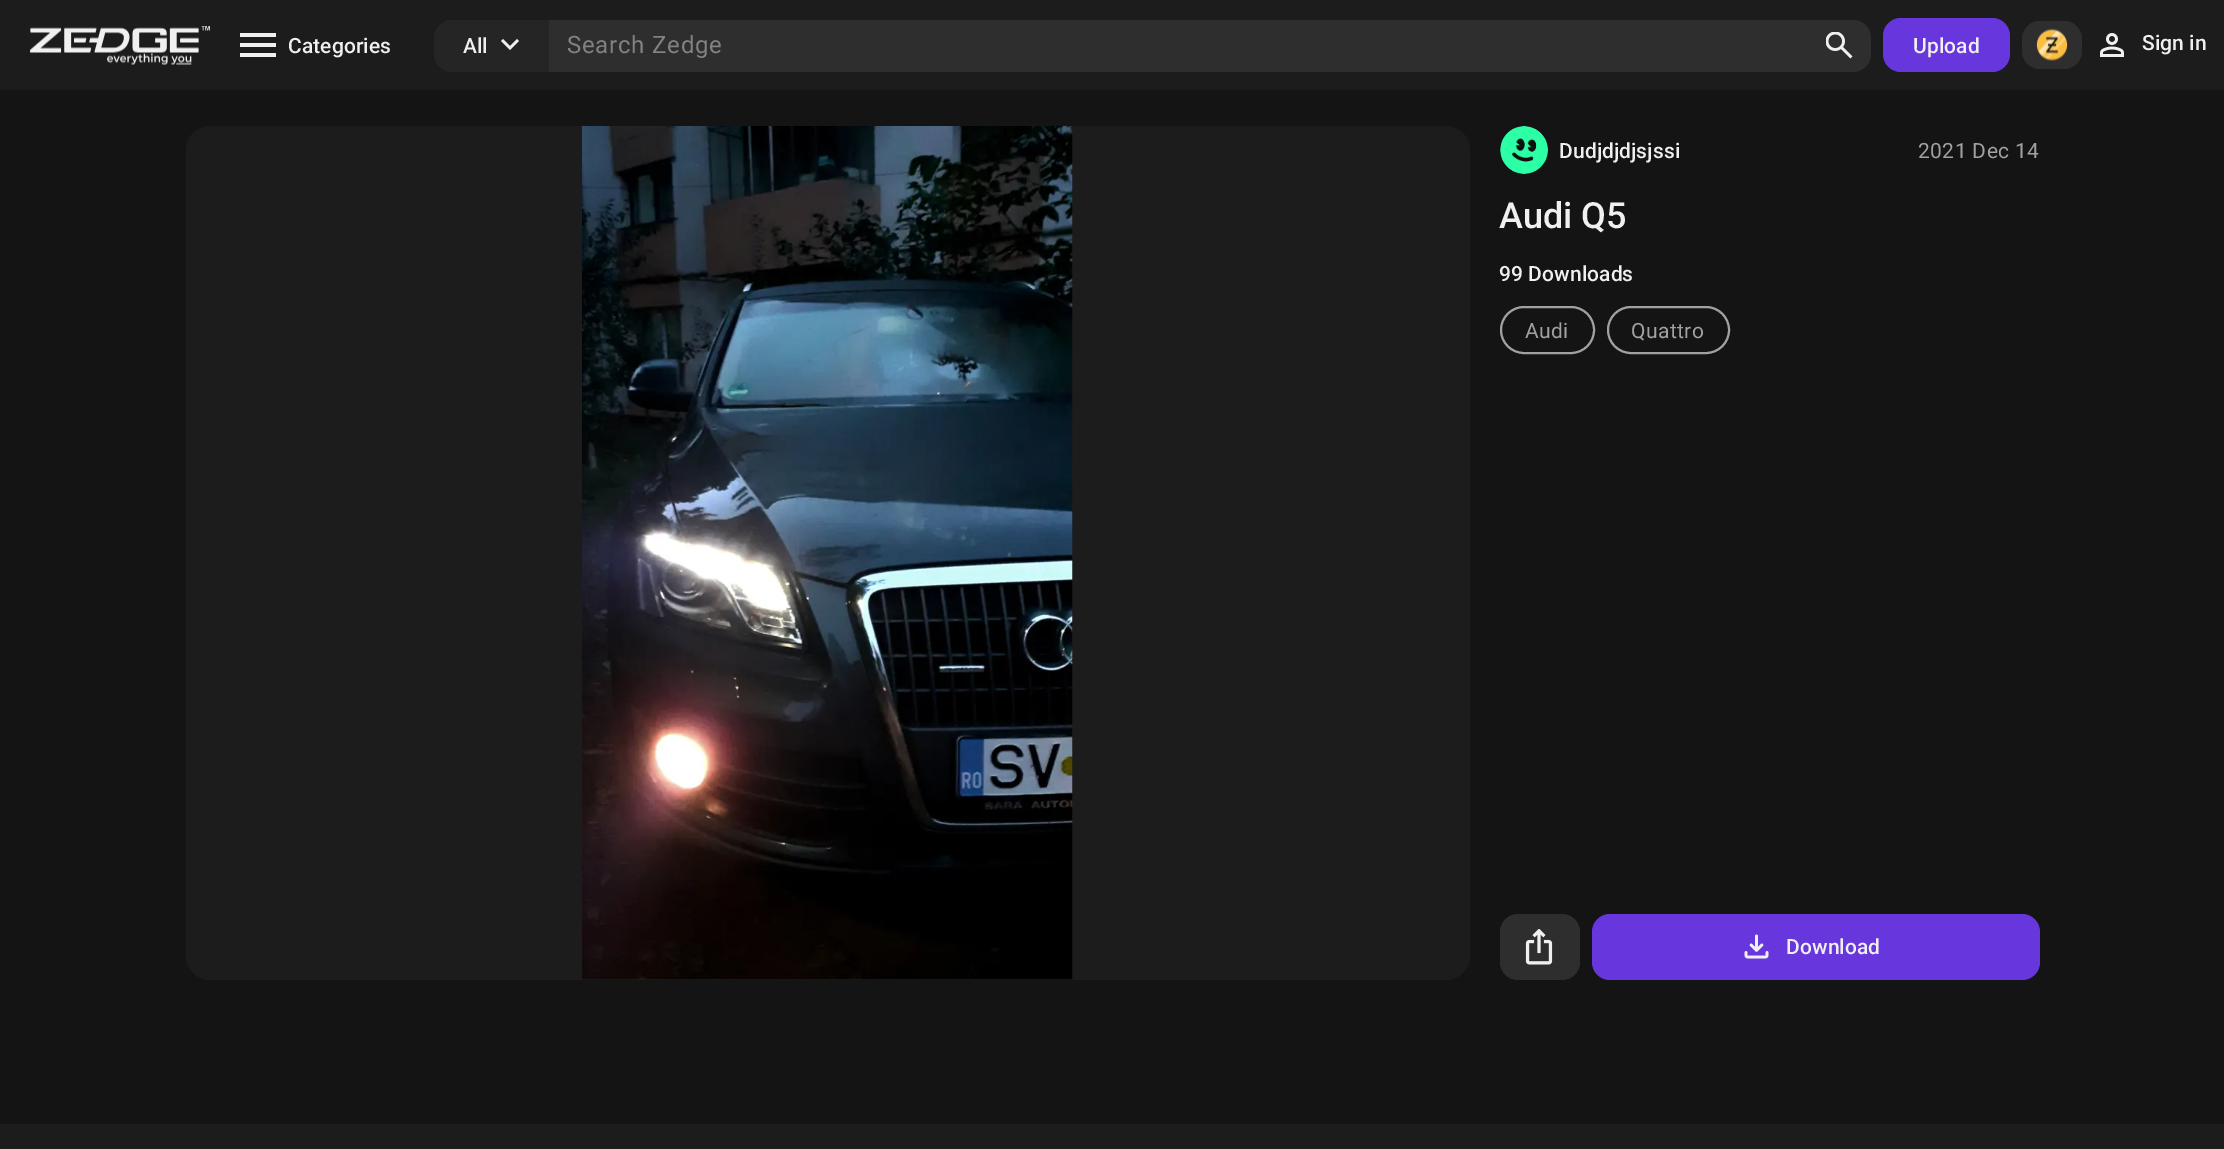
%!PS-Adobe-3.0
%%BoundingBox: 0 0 2224 1149
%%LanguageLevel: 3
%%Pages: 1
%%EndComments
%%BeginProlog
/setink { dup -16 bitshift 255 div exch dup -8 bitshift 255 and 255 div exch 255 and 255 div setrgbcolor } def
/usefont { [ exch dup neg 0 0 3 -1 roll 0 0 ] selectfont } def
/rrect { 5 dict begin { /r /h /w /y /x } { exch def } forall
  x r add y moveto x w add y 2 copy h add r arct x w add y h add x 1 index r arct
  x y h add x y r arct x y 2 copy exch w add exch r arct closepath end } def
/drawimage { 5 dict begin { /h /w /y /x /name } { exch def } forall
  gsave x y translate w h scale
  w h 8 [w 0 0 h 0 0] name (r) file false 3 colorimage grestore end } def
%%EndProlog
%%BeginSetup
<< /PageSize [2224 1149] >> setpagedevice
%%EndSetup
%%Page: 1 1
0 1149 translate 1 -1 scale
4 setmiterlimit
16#141414 setink
0 0 2224 1149 rectfill
16#1C1C1C setink
0 0 2224 90 rectfill
(img1.raw) 30 26 180 27 drawimage
(img2.raw) 107 53 85 12 drawimage
16#F0F0F0 setink
240 57 moveto 240 53 lineto 276 53 lineto 276 57 lineto closepath 240 47 moveto 240 43 lineto 276 43 lineto 276 47 lineto closepath 240 37 moveto 240 33 lineto 276 33 lineto 276 37 lineto closepath fill
/Roboto-Medium 21 usefont
288 53 moveto 0.1 0 (Categories) ashow
16#252525 setink
452 20 moveto 549 20 lineto 549 72 lineto 452 72 lineto 442 72 434 64 434 54 curveto 434 38 lineto 434 28 442 20 452 20 curveto closepath fill
16#F0F0F0 setink
463 53 moveto 0.1 0 (All) ashow
510 50 moveto 501 41 lineto 503 39 lineto 510 46 lineto 517 39 lineto 519 41 lineto closepath fill
16#2E2E2E setink
549 20 moveto 1853 20 lineto 1863 20 1871 28 1871 38 curveto 1871 54 lineto 1871 64 1863 72 1853 72 curveto 549 72 lineto closepath fill
/Roboto-Regular 24 usefont
16#828282 setink
567 53 moveto 0.75 0 (Search Zedge) ashow
(img3.raw) 1826 32 27 27 drawimage
16#6836DD setink
1883 18 127 54 18 rrect fill
/Roboto-Medium 21 usefont
16#F0F0F0 setink
1913 53 moveto 0.1 0 (Upload) ashow
16#2E2E2E setink
2022 21 60 48 18 rrect fill
(img4.raw) 2036 28 32 33 drawimage
(img5.raw) 2100 33 24 24 drawimage
16#F0F0F0 setink
2142 50 moveto 0.1 0 (Sign in) ashow
16#1C1C1C setink
186 126 1284 854 24 rrect fill
(img6.raw) 582 126 491 854 drawimage
(img7.raw) 1500 126 48 48 drawimage
16#F0F0F0 setink
1559 158 moveto 0.1 0 (Dudjdjdjsjssi) ashow
/Roboto-Regular 21 usefont
16#A1A1A1 setink
1918 158 moveto 0.4 0 (2021 Dec 14) ashow
/Roboto-Medium 36 usefont
16#F0F0F0 setink
1499 228 moveto (Audi Q5) show
/Roboto-Medium 21 usefont
1499 281 moveto 0.1 0 (99 Downloads) ashow
16#A1A1A1 setink
2 setlinewidth
1501 307 93 46 23 rrect stroke
/Roboto-Regular 21 usefont
1525 338 moveto 0.4 0 (Audi) ashow
1608 307 121 46 23 rrect stroke
1631 338 moveto 0.4 0 (Quattro) ashow
16#2E2E2E setink
1500 914 80 66 18 rrect fill
(img8.raw) 1525 929 28 36 drawimage
16#6836DD setink
1592 914 448 66 18 rrect fill
(img9.raw) 1744 934 25 25 drawimage
/Roboto-Medium 21 usefont
16#F0F0F0 setink
1786 954 moveto 0.1 0 (Download) ashow
16#1C1C1C setink
0 1124 2224 25 rectfill
showpage
%%EOF
